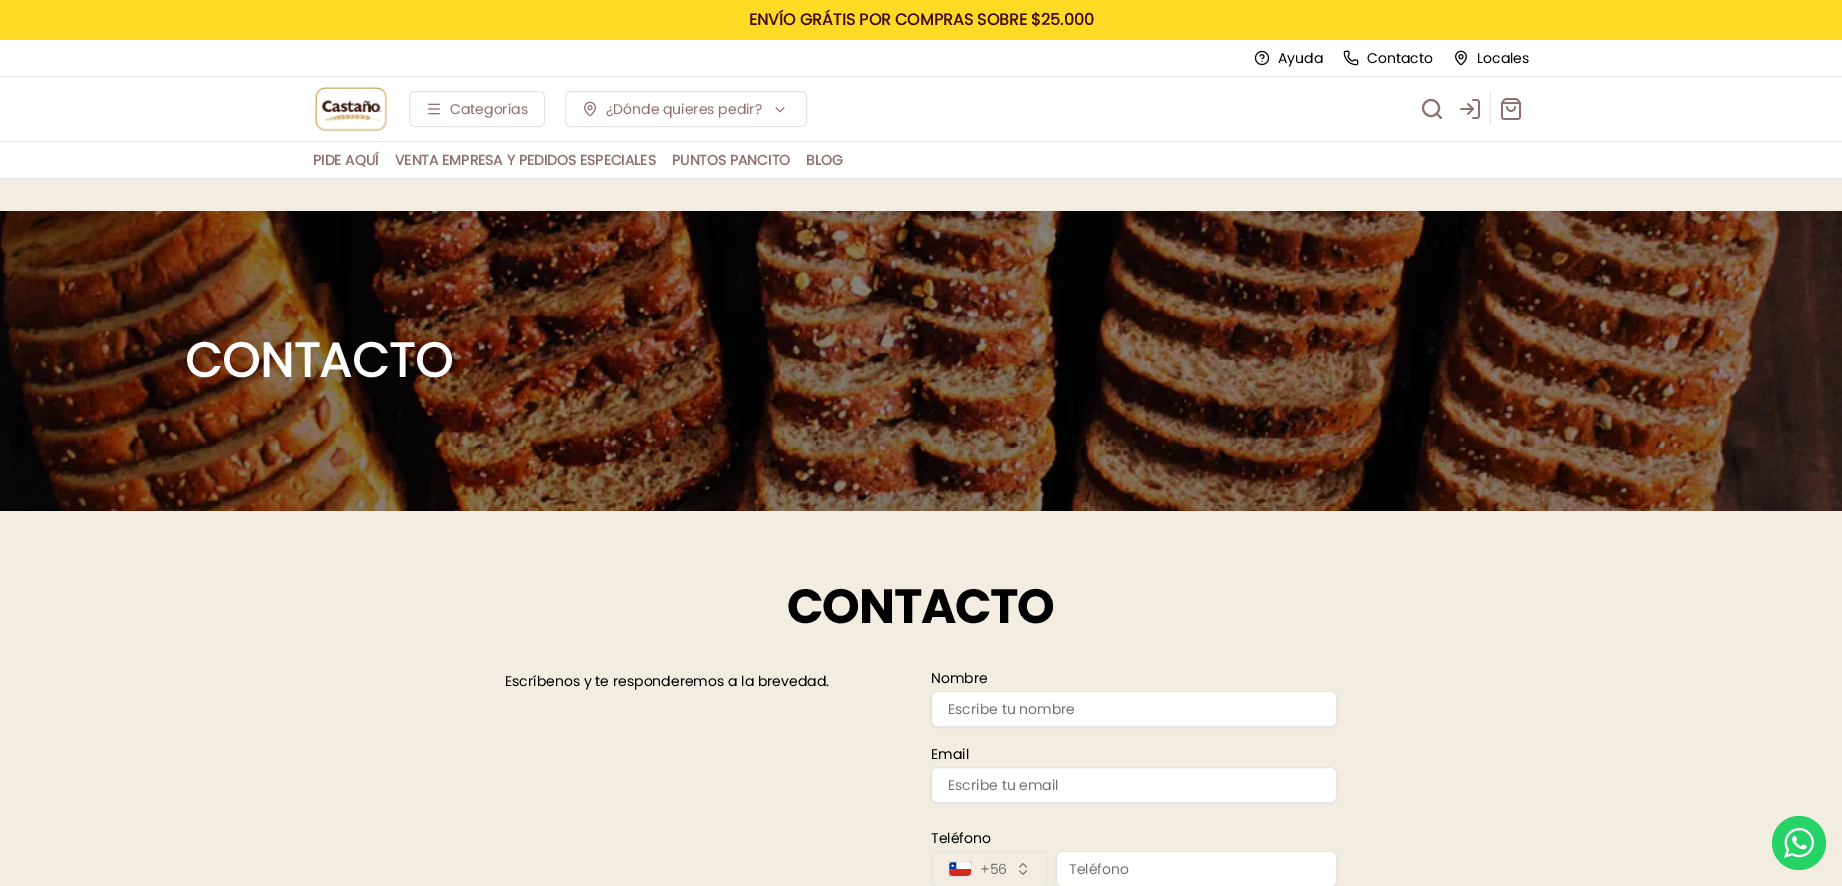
%!PS-Adobe-3.0
%%BoundingBox: 0 0 1842 886
%%LanguageLevel: 3
%%Pages: 1
%%EndComments
%%BeginProlog
/setink { dup -16 bitshift 255 div exch dup -8 bitshift 255 and 255 div exch 255 and 255 div setrgbcolor } def
/usefont { [ exch dup neg 0 0 3 -1 roll 0 0 ] selectfont } def
/setalpha { dup .setfillconstantalpha .setstrokeconstantalpha } def
/disc { newpath 0 360 arc closepath } def
/rrect { 5 dict begin { /r /h /w /y /x } { exch def } forall
  x r add y moveto x w add y 2 copy h add r arct x w add y h add x 1 index r arct
  x y h add x y r arct x y 2 copy exch w add exch r arct closepath end } def
/softshadow { 12 dict begin { /a /b /q /h /w /y /x } { exch def } forall gsave /was 0 def
  9 -2 -9 { dup b mul 4 div /e exch def 1 sub .425 mul 2.718 exch exp 1 add a .99 .min exch div /now exch def
    1 1 now sub 1 was sub div sub setalpha /was now def
    w h .min e 2 mul add 0 gt { x e sub y e sub w e 2 mul add h e 2 mul add
      q e add b .6 mul add w h .min 2 div e add .min 0 .max rrect fill } if } for grestore end } def
/drawimage { 5 dict begin { /h /w /y /x /name } { exch def } forall
  gsave x y translate w h scale
  w h 8 [w 0 0 h 0 0] name (r) file false 3 colorimage grestore end } def
%%EndProlog
%%BeginSetup
<< /PageSize [1842 886] /PageUsesTransparency true >> setpagedevice
%%EndSetup
%%Page: 1 1
0 .pushpdf14devicefilter
0 886 translate 1 -1 scale
4 setmiterlimit
16#F2ECE1 setink
0 0 1842 886 rectfill
16#FDDA24 setink
0 0 1842 40 rectfill
/Poppins-Bold 16 usefont
16#410C14 setink
749 25 moveto (ENVÍO GRÁTIS POR COMPRAS SOBRE $25.000) show
16#FFFFFF setink
0 40 1842 36 rectfill
16#E5E5E5 setink
0 76 1842 1 rectfill
(img1.raw) 1254 50 16 16 drawimage
/Poppins-Regular 14 usefont
16#000000 setink
1278 63 moveto (Ayuda) show
(img2.raw) 1343 50 16 16 drawimage
1367 63 moveto (Contacto) show
(img3.raw) 1455 50 12 16 drawimage
1477 63 moveto (Locales) show
16#FFFFFF setink
0 77 1842 64 rectfill
16#E5E5E5 setink
0 141 1842 1 rectfill
(img4.raw) 315 87 73 45 drawimage
409.5 91.5 135 35 5.5 rrect stroke
(img5.raw) 428 103 12 12 drawimage
16#906F6F setink
450 114 moveto (Categorías) show
16#E5E5E5 setink
565.5 91.5 241 35 5.5 rrect stroke
(img6.raw) 584 101 12 16 drawimage
16#906F6F setink
606 114 moveto (¿Dónde quieres pedir?) show
(img7.raw) 775 107 10 6 drawimage
2 setlinewidth
1 setlinecap
1 setlinejoin
1441 118 moveto 1436.5 113.5 lineto stroke
0 setlinecap
0 setlinejoin
1431 108 8 disc stroke
(img8.raw) 1460 99 20 20 drawimage
16#E5E5E5 setink
1490 93 1 32 rectfill
(img9.raw) 1501 98 20 22 drawimage
16#FFFFFF setink
0 142 1842 36 rectfill
16#E5E5E5 setink
0 178 1842 1 rectfill
/Poppins-Bold 14 usefont
16#906F6F setink
[
    [(PIDE AQUÍ) 313 165]
    [(VENTA EMPRESA Y PEDIDOS ESPECIALES) 395 165]
    [(PUNTOS PANCITO) 672 165]
    [(BLOG) 806 165]
] { aload pop moveto show } forall
(img10.raw) 0 211 1842 300 drawimage
/Poppins-Bold 48 usefont
16#FFFFFF setink
185 377 moveto (CONTACTO) show
/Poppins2-Bold 48 usefont
16#000000 setink
787 623 moveto -1.25 0 (CONTACTO) ashow
/Poppins-Regular 14 usefont
505 686 moveto (Escríbenos y te responderemos a la brevedad.) show
931 683 moveto (Nombre) show
931 692 406 36 6 1 0.05 softshadow
16#FFFFFF setink
931.5 691.5 405 35 5.5 rrect gsave fill grestore
16#E5E5E5 setink
1 setlinewidth
stroke
16#737373 setink
948 714 moveto (Escribe tu nombre) show
16#000000 setink
931 759 moveto (Email) show
931 768 406 36 6 1 0.05 softshadow
16#FFFFFF setink
931.5 767.5 405 35 5.5 rrect gsave fill grestore
16#E5E5E5 setink
stroke
16#737373 setink
948 790 moveto (Escribe tu email) show
16#000000 setink
931 843 moveto (Teléfono) show
16#E5E5E5 setink
931.5 851.5 116 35 5.5 rrect stroke
(img11.raw) 948 861 24 16 drawimage
948.5 861.5 23 15 3.5 rrect stroke
16#737373 setink
980 874 moveto (+56) show
(img12.raw) 1019 863 8 12 drawimage
16#000000 setink
1056 852 281 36 6 1 0.05 softshadow
16#FFFFFF setink
1056.5 851.5 280 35 5.5 rrect gsave fill grestore
16#E5E5E5 setink
stroke
16#737373 setink
1069 874 moveto (Teléfono) show
16#25D366 setink
1799 843 27 disc fill
(img13.raw) 1784 828 30 30 drawimage
.poppdf14devicefilter showpage
%%EOF
